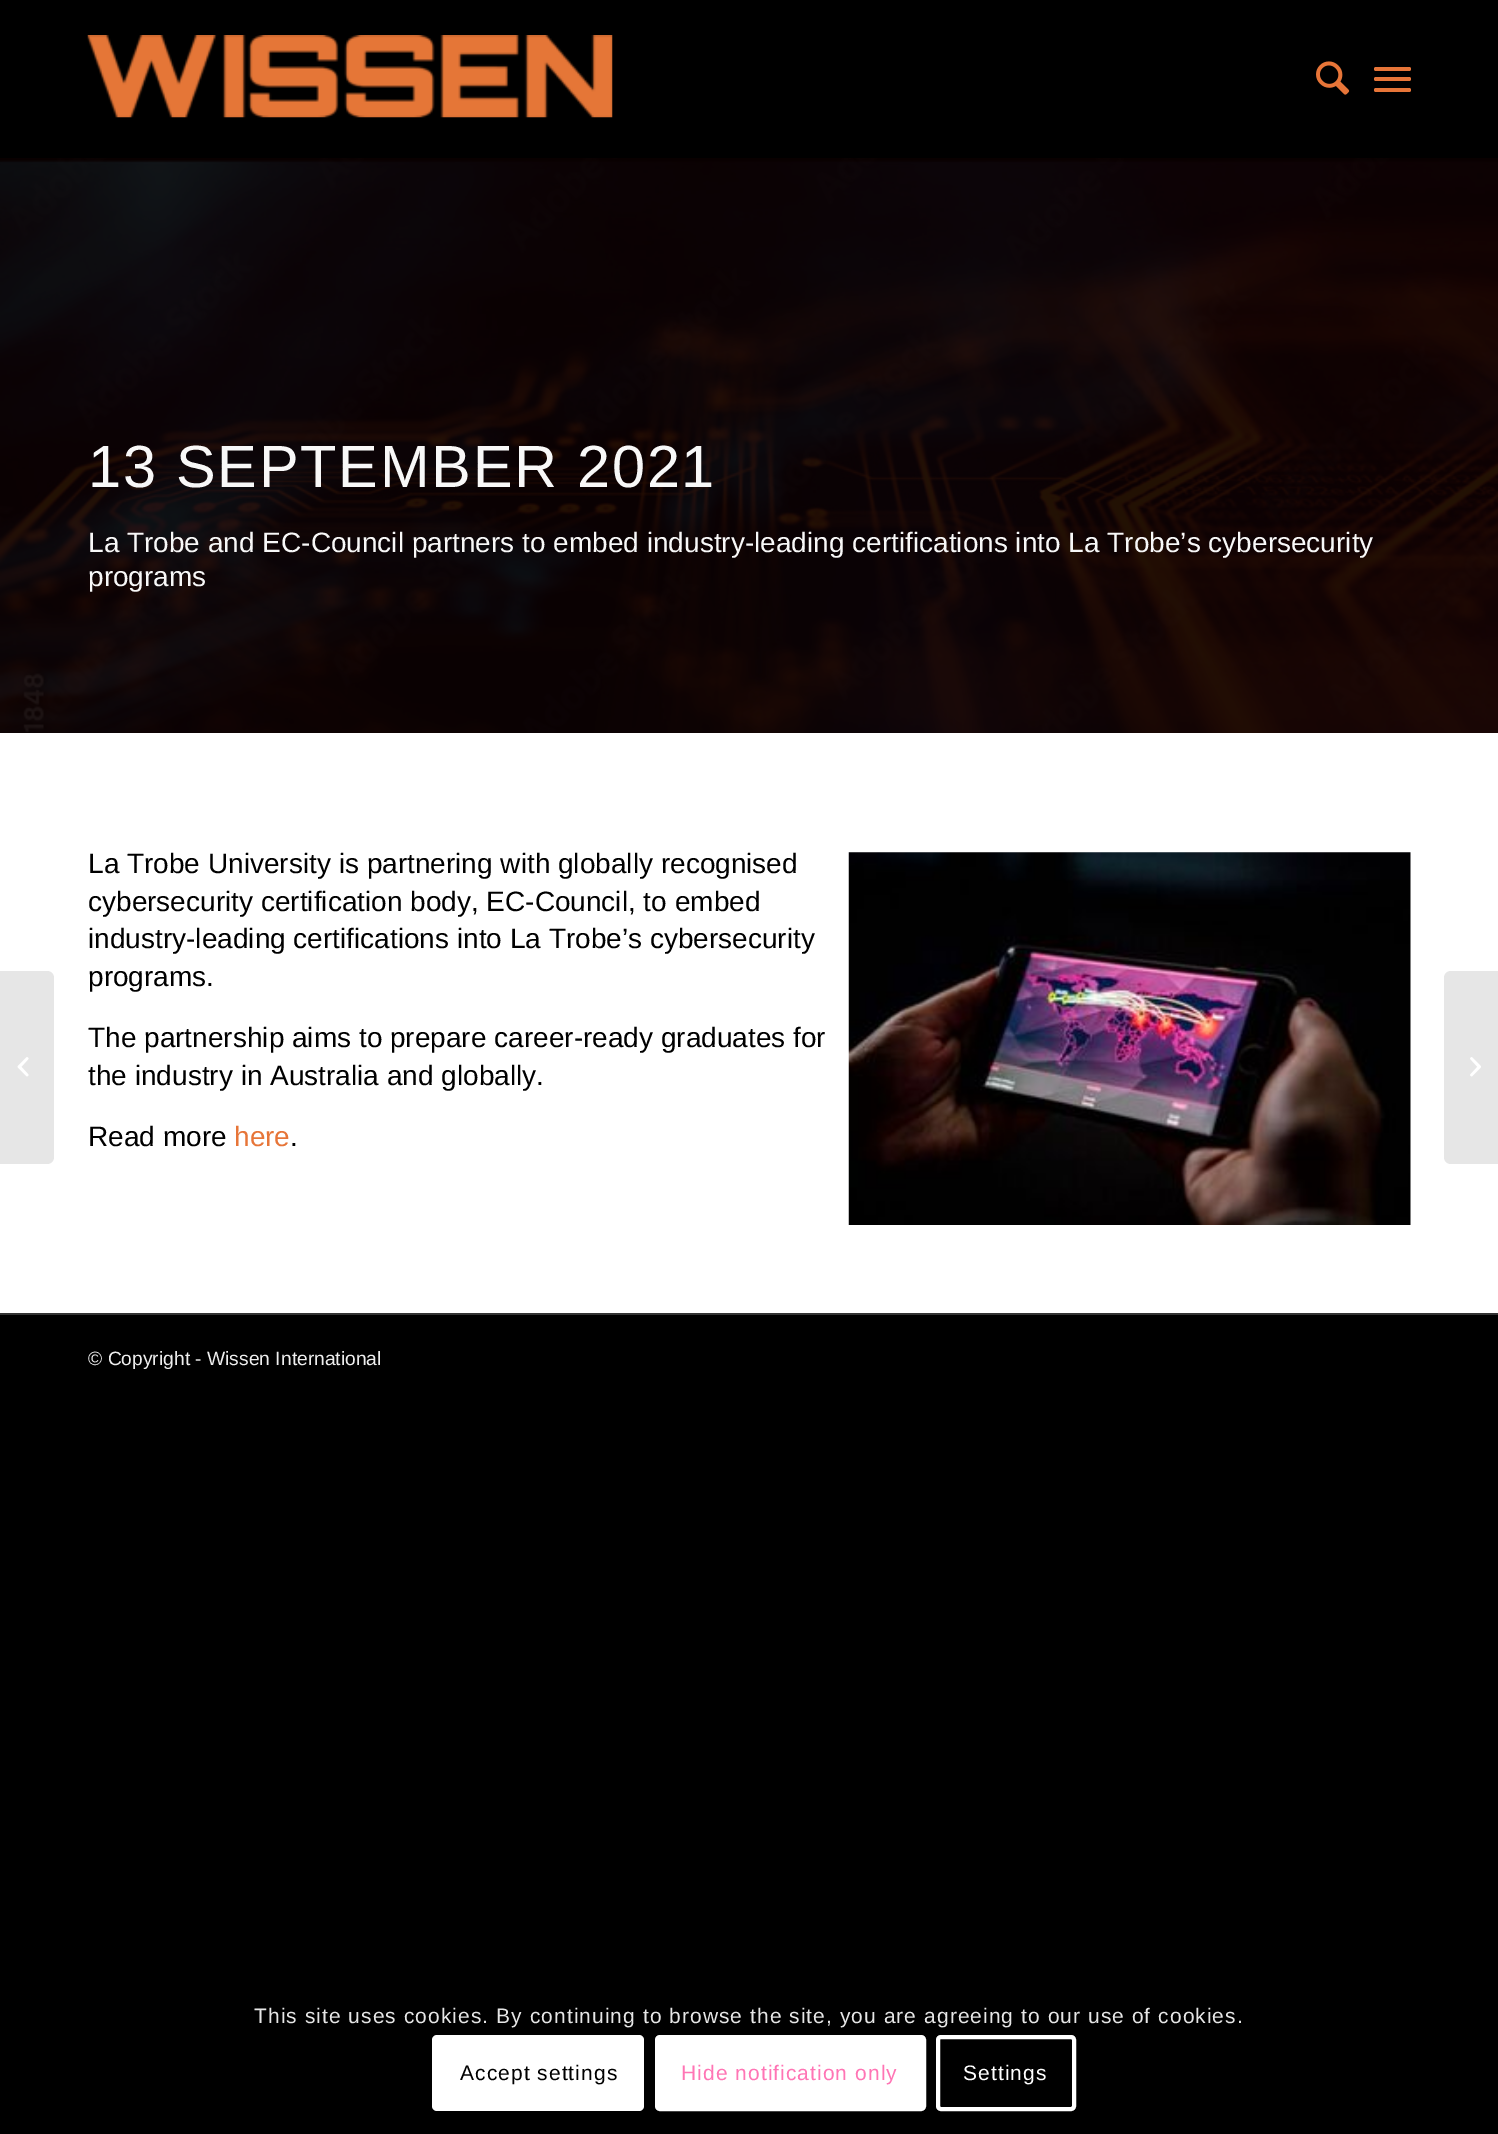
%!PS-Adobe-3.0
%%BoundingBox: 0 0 1498 2134
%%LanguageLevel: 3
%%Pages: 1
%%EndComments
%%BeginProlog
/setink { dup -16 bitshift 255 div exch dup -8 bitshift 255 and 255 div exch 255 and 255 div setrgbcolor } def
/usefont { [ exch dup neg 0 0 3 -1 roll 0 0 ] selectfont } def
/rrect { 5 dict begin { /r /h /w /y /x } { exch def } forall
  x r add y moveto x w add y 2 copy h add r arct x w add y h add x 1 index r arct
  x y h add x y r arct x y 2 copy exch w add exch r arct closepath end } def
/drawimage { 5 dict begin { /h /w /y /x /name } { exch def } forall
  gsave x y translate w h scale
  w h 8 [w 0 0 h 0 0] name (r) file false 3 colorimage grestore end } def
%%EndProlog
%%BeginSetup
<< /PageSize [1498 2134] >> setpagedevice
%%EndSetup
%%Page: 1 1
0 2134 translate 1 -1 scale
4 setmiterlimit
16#000000 setink
0 0 1498 2134 rectfill
(img1.raw) 87 35 526 83 drawimage
(img2.raw) 1316 61 34 34 drawimage
16#E77538 setink
1374 77 37 4 2 rrect fill
1374 67 37 4 2 rrect fill
1374 88 37 4 2 rrect fill
16#FFFFFF setink
0 733 1498 580 rectfill
16#E6E6E6 setink
0 971 moveto 47 971 lineto 51 971 54 974 54 978 curveto 54 1157 lineto 54 1161 51 1164 47 1164 curveto 0 1164 lineto closepath fill
(img3.raw) 17 1057 12 20 drawimage
(img4.raw) 0 158 1498 575 drawimage
/LiberationSans-Regular 59.5 usefont
16#F8F8F8 setink
88 487 moveto 1.75 0 (13 SEPTEMBER 2021) ashow
/LiberationSans-Regular 28 usefont
88 552 moveto (La Trobe and EC-Council partners to embed industry-leading certifications into La Trobe’s cybersecurity) show
88 586 moveto (programs) show
16#000000 setink
88 873 moveto (La Trobe University is partnering with globally recognised) show
(img5.raw) 848 852 563 373 drawimage
[
    [(cybersecurity certification body, EC-Council, to embed) 88 911]
    [(industry-leading certifications into La Trobe’s cybersecurity) 88 948]
    [(programs.) 88 986]
    [(The partnership aims to prepare career-ready graduates for) 88 1047]
    [(the industry in Australia and globally.) 88 1085]
    [(Read more) 88 1146]
] { aload pop moveto show } forall
16#E77538 setink
234 1146 moveto (here) show
16#000000 setink
290 1146 moveto (.) show
16#333333 setink
0 1313 1498 2 rectfill
/LiberationSans-Regular 19.25 usefont
16#EEEEEE setink
88 1365 moveto (© Copyright - Wissen International) show
16#E6E6E6 setink
1451 971 moveto 1498 971 lineto 1498 1164 lineto 1451 1164 lineto 1447 1164 1444 1161 1444 1157 curveto 1444 978 lineto 1444 974 1447 971 1451 971 curveto closepath fill
(img6.raw) 1470 1057 11 20 drawimage
/LiberationSans-Regular 21 usefont
254 2023 moveto 1.05 0 (This site uses cookies. By continuing to browse the site, you are agreeing to our use of cookies.) ashow
16#FFFFFF setink
432 2035 212 76 5 rrect fill
16#000000 setink
460 2080 moveto 1.05 0 (Accept settings) ashow
16#FFFFFF setink
657 2037 267 72 3 rrect gsave fill grestore
4 setlinewidth
stroke
16#FF75B5 setink
681 2080 moveto 1.05 0 (Hide notification only) ashow
16#FFFFFF setink
938 2037 136 72 3 rrect stroke
963 2080 moveto 1.05 0 (Settings) ashow
showpage
%%EOF
